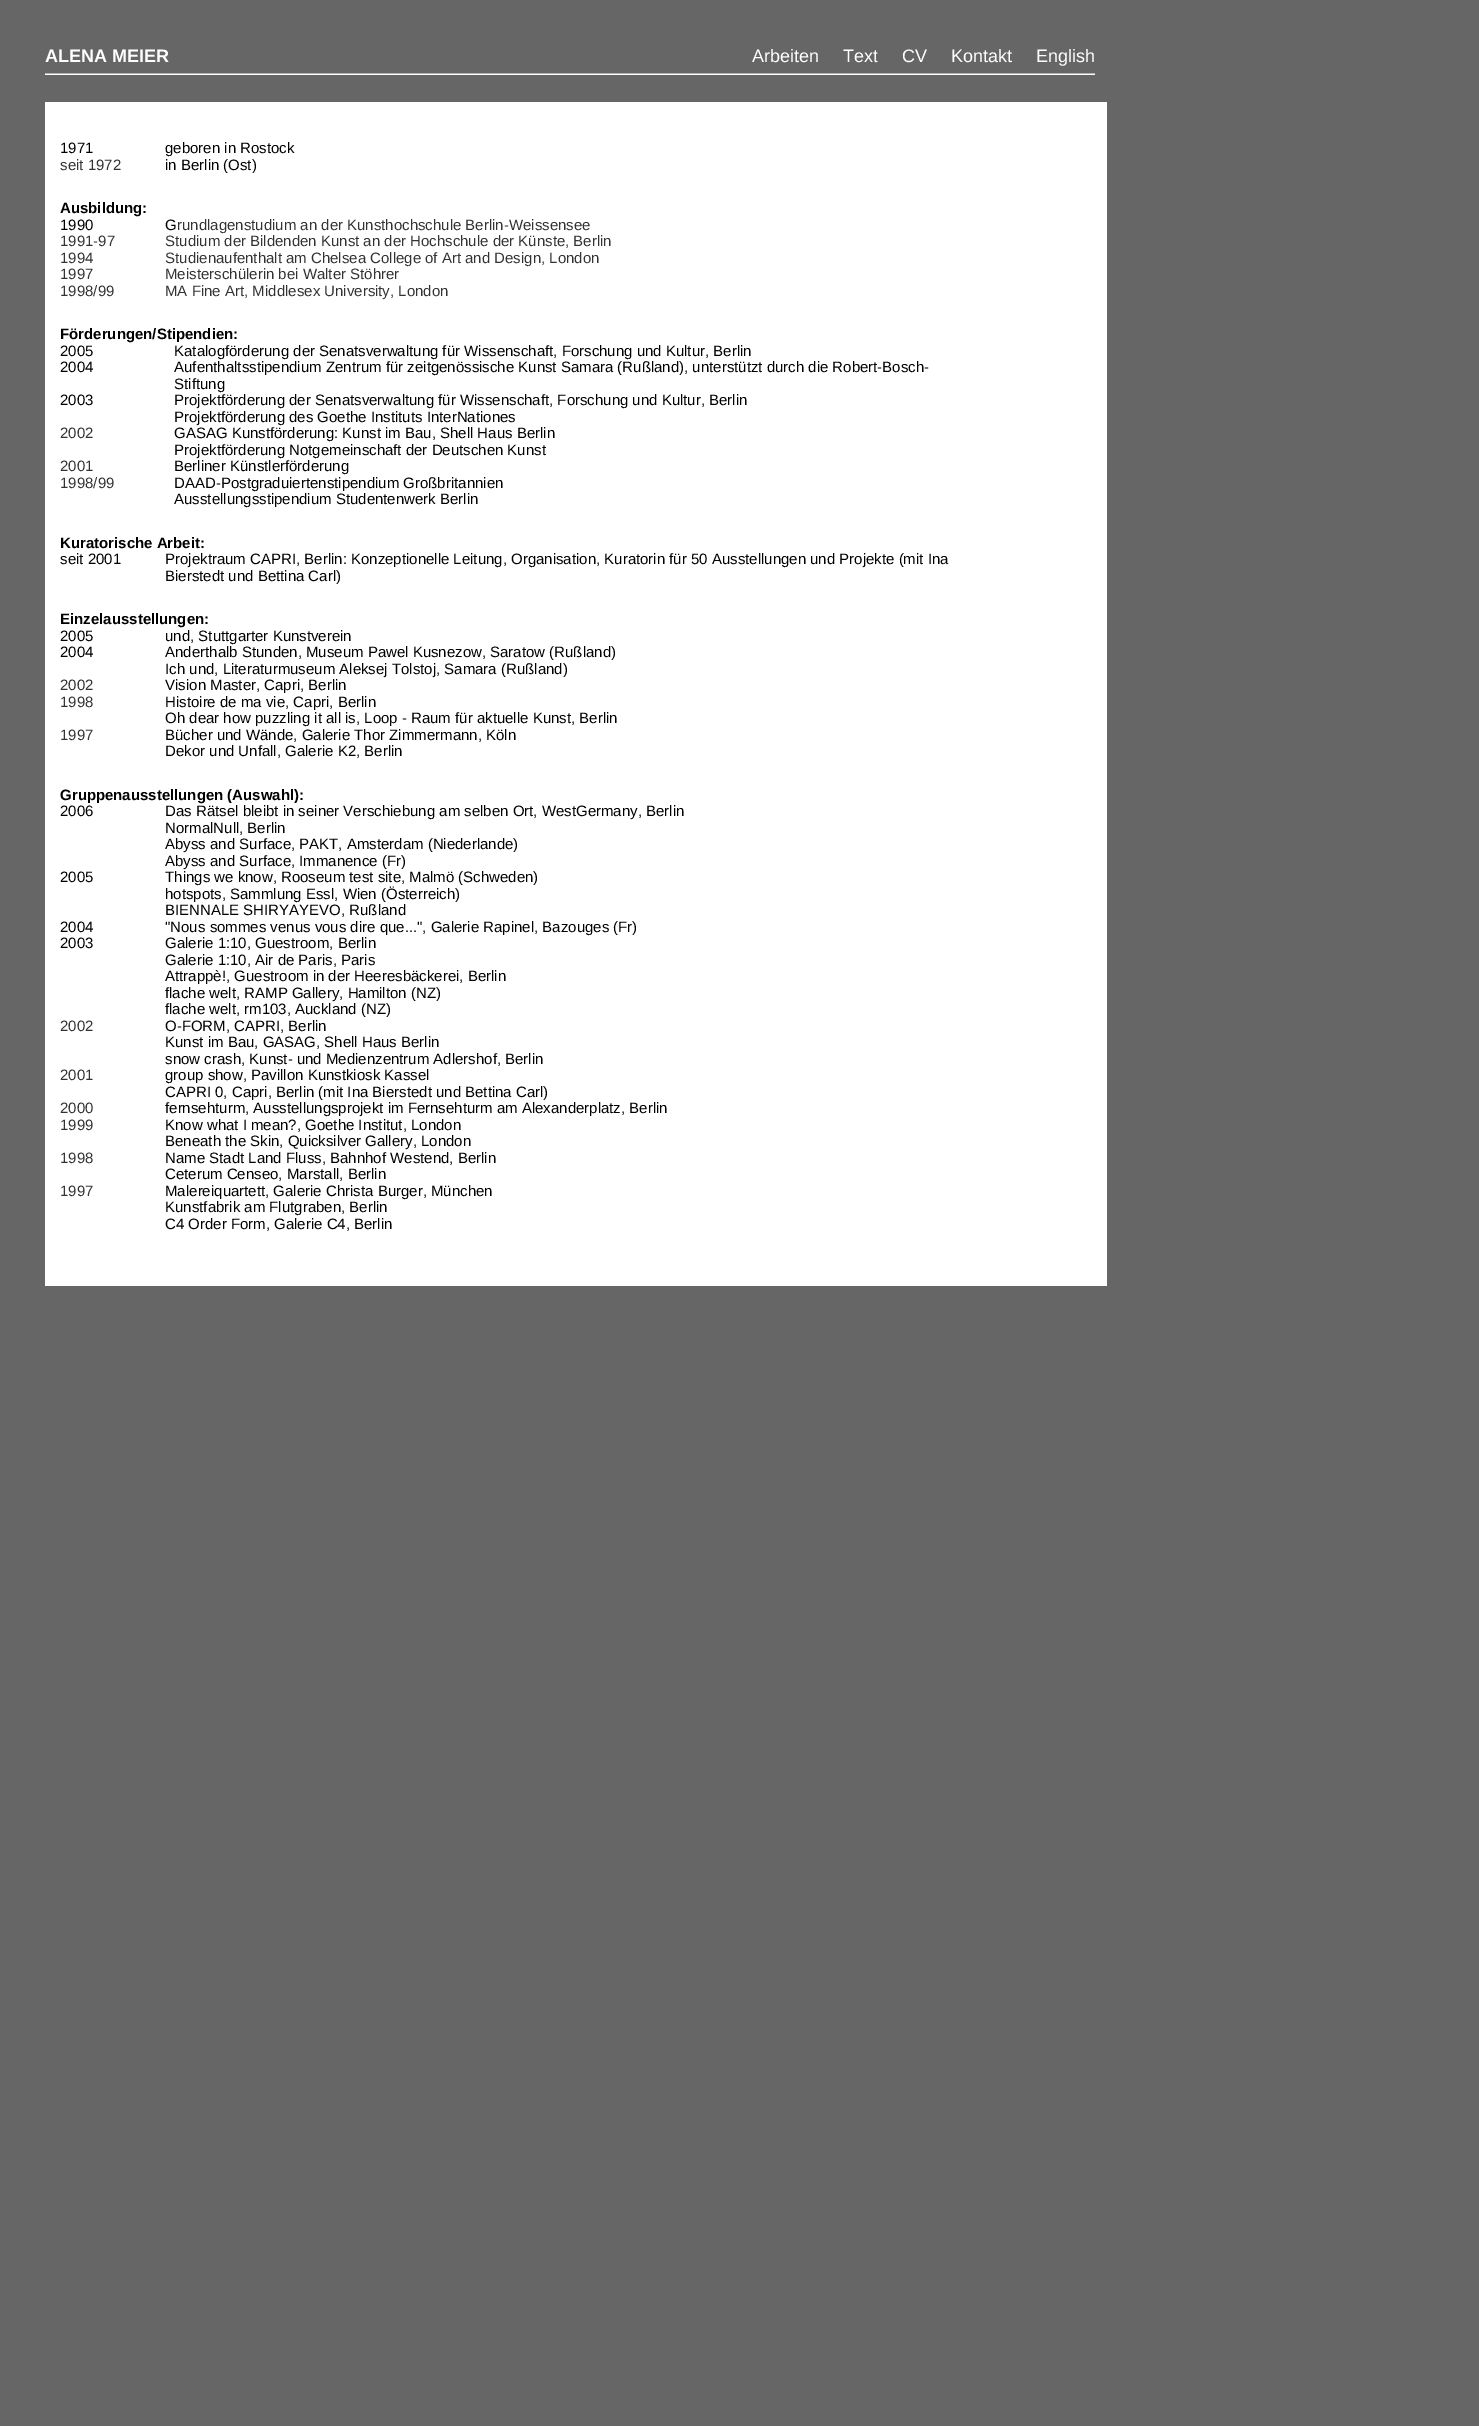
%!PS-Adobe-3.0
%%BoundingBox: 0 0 1479 2426
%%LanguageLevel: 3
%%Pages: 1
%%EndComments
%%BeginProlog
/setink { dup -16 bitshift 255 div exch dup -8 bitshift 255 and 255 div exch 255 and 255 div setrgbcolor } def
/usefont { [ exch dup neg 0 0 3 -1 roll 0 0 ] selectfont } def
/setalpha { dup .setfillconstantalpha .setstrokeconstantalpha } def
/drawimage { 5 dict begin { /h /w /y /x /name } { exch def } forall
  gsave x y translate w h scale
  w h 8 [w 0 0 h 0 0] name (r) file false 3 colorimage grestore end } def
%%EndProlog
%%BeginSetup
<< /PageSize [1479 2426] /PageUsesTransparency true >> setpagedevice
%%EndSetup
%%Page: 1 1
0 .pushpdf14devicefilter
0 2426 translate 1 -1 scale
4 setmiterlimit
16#666666 setink
0 0 1479 2426 rectfill
/LiberationSans-Bold 18 usefont
16#FFFFFF setink
45 62 moveto (ALENA MEIER) show
/LiberationSans-Regular 18 usefont
[
    [(Arbeiten) 752 62]
    [(Text) 843 62]
    [(CV) 902 62]
    [(Kontakt) 951 62]
    [(English) 1036 62]
] { aload pop moveto show } forall
0.5 setalpha
16#626262 setink
877 52 1 10 rectfill
1 setalpha
(img1.raw) 45 73 1050 2 drawimage
16#FFFFFF setink
45 102 1062 38 rectfill
45 140 1062 1108 rectfill
/LiberationSans-Regular 15 usefont
16#000000 setink
60 153 moveto (1971) show
16#333333 setink
60 170 moveto (seit 1972) show
16#000000 setink
165 153 moveto (geboren in Rostock) show
165 170 moveto (in Berlin \(Ost\)) show
/LiberationSans-Bold 15 usefont
60 213 moveto (Ausbildung:) show
/LiberationSans-Regular 15 usefont
60 230 moveto (1990) show
16#333333 setink
[
    [(1991-97) 60 246]
    [(1994) 60 263]
    [(1997) 60 279]
    [(1998/99) 60 296]
] { aload pop moveto show } forall
16#000000 setink
165 230 moveto (G) show
16#333333 setink
[
    [(rundlagenstudium an der Kunsthochschule Berlin-Weissensee) 177 230]
    [(Studium der Bildenden Kunst an der Hochschule der Künste, Berlin) 165 246]
    [(Studienaufenthalt am Chelsea College of Art and Design, London) 165 263]
    [(Meisterschülerin bei Walter Stöhrer) 165 279]
    [(MA Fine Art, Middlesex University, London) 165 296]
] { aload pop moveto show } forall
/LiberationSans-Bold 15 usefont
16#000000 setink
60 339 moveto (Förderungen/Stipendien:) show
/LiberationSans-Regular 15 usefont
[
    [(2005) 60 356]
    [(2004) 60 372]
    [(2003) 60 405]
] { aload pop moveto show } forall
16#333333 setink
[
    [(2002) 60 438]
    [(2001) 60 471]
    [(1998/99) 60 488]
] { aload pop moveto show } forall
16#000000 setink
[
    [(Katalogförderung der Senatsverwaltung für Wissenschaft, Forschung und Kultur, Berlin) 174 356]
    [(Aufenthaltsstipendium Zentrum für zeitgenössische Kunst Samara \(Rußland\), unterstützt durch die Robert-Bosch-) 174 372]
    [(Stiftung) 174 389]
    [(Projektförderung der Senatsverwaltung für Wissenschaft, Forschung und Kultur, Berlin) 174 405]
    [(Projektförderung des Goethe Instituts InterNationes) 174 422]
    [(GASAG Kunstförderung: Kunst im Bau, Shell Haus Berlin) 174 438]
    [(Projektförderung Notgemeinschaft der Deutschen Kunst) 174 455]
    [(Berliner Künstlerförderung) 174 471]
    [(DAAD-Postgraduiertenstipendium Großbritannien) 174 488]
    [(Ausstellungsstipendium Studentenwerk Berlin) 174 504]
] { aload pop moveto show } forall
/LiberationSans-Bold 15 usefont
60 548 moveto (Kuratorische Arbeit:) show
/LiberationSans-Regular 15 usefont
[
    [(seit 2001) 60 564]
    [(Projektraum CAPRI, Berlin: Konzeptionelle Leitung, Organisation, Kuratorin für 50 Ausstellungen und Projekte \(mit Ina) 165 564]
    [(Bierstedt und Bettina Carl\)) 165 581]
] { aload pop moveto show } forall
/LiberationSans-Bold 15 usefont
60 624 moveto (Einzelausstellungen:) show
/LiberationSans-Regular 15 usefont
60 641 moveto (2005) show
60 657 moveto (2004) show
16#333333 setink
[
    [(2002) 60 690]
    [(1998) 60 707]
    [(1997) 60 740]
] { aload pop moveto show } forall
16#000000 setink
[
    [(und, Stuttgarter Kunstverein) 165 641]
    [(Anderthalb Stunden, Museum Pawel Kusnezow, Saratow \(Rußland\)) 165 657]
    [(Ich und, Literaturmuseum Aleksej Tolstoj, Samara \(Rußland\)) 165 674]
    [(Vision Master, Capri, Berlin) 165 690]
    [(Histoire de ma vie, Capri, Berlin) 165 707]
    [(Oh dear how puzzling it all is, Loop - Raum für aktuelle Kunst, Berlin) 165 723]
    [(Bücher und Wände, Galerie Thor Zimmermann, Köln) 165 740]
    [(Dekor und Unfall, Galerie K2, Berlin) 165 756]
] { aload pop moveto show } forall
/LiberationSans-Bold 15 usefont
60 800 moveto (Gruppenausstellungen \(Auswahl\):) show
/LiberationSans-Regular 15 usefont
[
    [(2006) 60 816]
    [(2005) 60 882]
    [(2004) 60 932]
    [(2003) 60 948]
] { aload pop moveto show } forall
16#333333 setink
[
    [(2002) 60 1031]
    [(2001) 60 1080]
    [(2000) 60 1113]
    [(1999) 60 1130]
    [(1998) 60 1163]
    [(1997) 60 1196]
] { aload pop moveto show } forall
16#000000 setink
[
    [(Das Rätsel bleibt in seiner Verschiebung am selben Ort, WestGermany, Berlin) 165 816]
    [(NormalNull, Berlin) 165 833]
    [(Abyss and Surface, PAKT, Amsterdam \(Niederlande\)) 165 849]
    [(Abyss and Surface, Immanence \(Fr\)) 165 866]
    [(Things we know, Rooseum test site, Malmö \(Schweden\)) 165 882]
    [(hotspots, Sammlung Essl, Wien \(Österreich\)) 165 899]
    [(BIENNALE SHIRYAYEVO, Rußland) 165 915]
    [("Nous sommes venus vous dire que...", Galerie Rapinel, Bazouges \(Fr\)) 165 932]
    [(Galerie 1:10, Guestroom, Berlin) 165 948]
    [(Galerie 1:10, Air de Paris, Paris) 165 965]
    [(Attrappè!, Guestroom in der Heeresbäckerei, Berlin) 165 981]
    [(flache welt, RAMP Gallery, Hamilton \(NZ\)) 165 998]
    [(flache welt, rm103, Auckland \(NZ\)) 165 1014]
    [(O-FORM, CAPRI, Berlin) 165 1031]
    [(Kunst im Bau, GASAG, Shell Haus Berlin) 165 1047]
    [(snow crash, Kunst- und Medienzentrum Adlershof, Berlin) 165 1064]
    [(group show, Pavillon Kunstkiosk Kassel) 165 1080]
    [(CAPRI 0, Capri, Berlin \(mit Ina Bierstedt und Bettina Carl\)) 165 1097]
    [(fernsehturm, Ausstellungsprojekt im Fernsehturm am Alexanderplatz, Berlin) 165 1113]
    [(Know what I mean?, Goethe Institut, London) 165 1130]
    [(Beneath the Skin, Quicksilver Gallery, London) 165 1146]
    [(Name Stadt Land Fluss, Bahnhof Westend, Berlin) 165 1163]
    [(Ceterum Censeo, Marstall, Berlin) 165 1179]
    [(Malereiquartett, Galerie Christa Burger, München) 165 1196]
    [(Kunstfabrik am Flutgraben, Berlin) 165 1212]
    [(C4 Order Form, Galerie C4, Berlin) 165 1229]
] { aload pop moveto show } forall
16#FFFFFF setink
45 1248 1062 38 rectfill
.poppdf14devicefilter showpage
%%EOF
